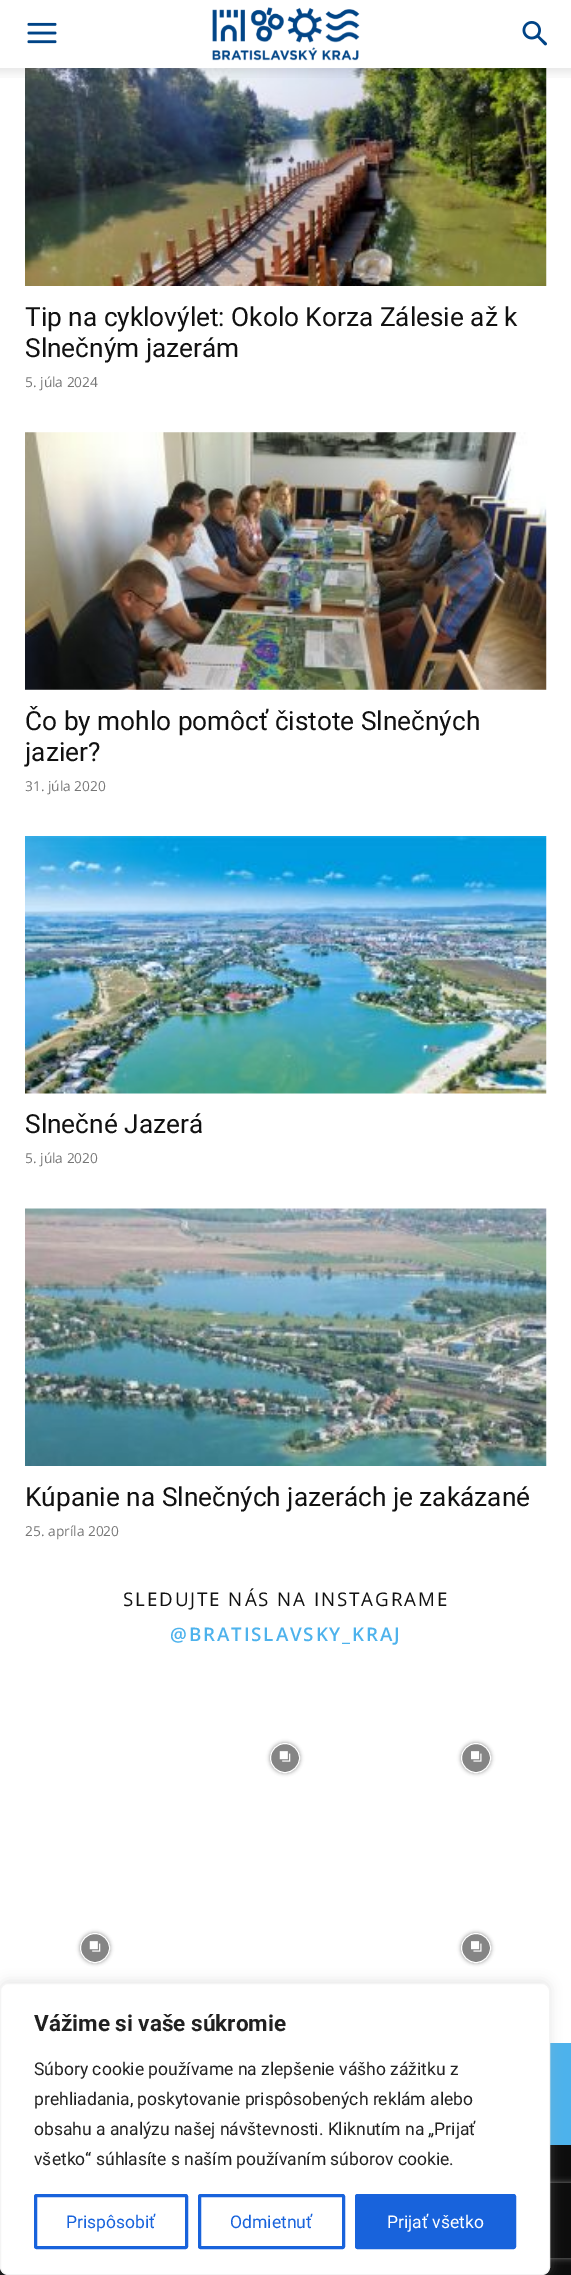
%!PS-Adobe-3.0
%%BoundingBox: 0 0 571 2275
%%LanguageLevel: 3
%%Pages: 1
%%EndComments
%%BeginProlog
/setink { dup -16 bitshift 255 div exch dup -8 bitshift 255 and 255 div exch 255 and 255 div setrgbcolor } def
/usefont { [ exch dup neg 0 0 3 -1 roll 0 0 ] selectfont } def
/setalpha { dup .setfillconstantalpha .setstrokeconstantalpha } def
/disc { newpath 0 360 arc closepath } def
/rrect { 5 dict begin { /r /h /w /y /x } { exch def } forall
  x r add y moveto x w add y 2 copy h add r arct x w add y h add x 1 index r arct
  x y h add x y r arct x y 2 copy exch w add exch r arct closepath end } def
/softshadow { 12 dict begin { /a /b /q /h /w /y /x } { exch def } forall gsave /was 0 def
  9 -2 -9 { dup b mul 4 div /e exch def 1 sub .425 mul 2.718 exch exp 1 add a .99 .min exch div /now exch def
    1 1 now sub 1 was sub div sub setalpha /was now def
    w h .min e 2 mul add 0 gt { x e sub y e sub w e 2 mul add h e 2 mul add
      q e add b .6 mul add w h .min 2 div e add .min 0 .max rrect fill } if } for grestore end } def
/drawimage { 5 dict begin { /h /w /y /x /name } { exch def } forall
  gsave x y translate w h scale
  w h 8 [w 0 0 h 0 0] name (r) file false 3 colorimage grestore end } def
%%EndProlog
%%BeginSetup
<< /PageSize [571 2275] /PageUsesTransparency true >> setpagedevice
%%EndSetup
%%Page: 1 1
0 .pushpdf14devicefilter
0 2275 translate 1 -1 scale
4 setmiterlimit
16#FFFFFF setink
0 0 571 2275 rectfill
(img1.raw) 27 22 30 22 drawimage
(img2.raw) 212 7 148 54 drawimage
(img3.raw) 522 21 25 25 drawimage
(img5.raw) 25 68 522 218 drawimage
(img4.raw) 0 68 571 10 drawimage
/Roboto-Regular 26.25 usefont
16#111111 setink
25 326 moveto (Tip na cyklovýlet: Okolo Korza Zálesie až k) show
25 357 moveto (Slnečným jazerám) show
/OpenSans-Regular 13.75 usefont
16#767676 setink
25 387 moveto (5. júla 2024) show
(img6.raw) 25 432 522 258 drawimage
/Roboto-Regular 26.25 usefont
16#111111 setink
25 730 moveto (Čo by mohlo pomôcť čistote Slnečných) show
25 761 moveto (jazier?) show
/OpenSans-Regular 13.75 usefont
16#767676 setink
25 791 moveto (31. júla 2020) show
(img7.raw) 25 836 522 258 drawimage
/Roboto-Regular 26.25 usefont
16#111111 setink
25 1133 moveto (Slnečné Jazerá) show
/OpenSans-Regular 13.75 usefont
16#767676 setink
25 1163 moveto (5. júla 2020) show
(img8.raw) 25 1208 522 258 drawimage
/Roboto-Regular 26.25 usefont
16#111111 setink
25 1506 moveto (Kúpanie na Slnečných jazerách je zakázané) show
/OpenSans-Regular 13.75 usefont
16#767676 setink
25 1536 moveto (25. apríla 2020) show
/OpenSans-Regular 18.75 usefont
16#111111 setink
123 1606 moveto 1.9 0 (SLEDUJTE NÁS NA INSTAGRAME) ashow
/OpenSans-SemiBold 18.75 usefont
16#4DB2EC setink
170 1641 moveto 1.9 0 (@BRATISLAVSKY_KRAJ) ashow
gsave
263 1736 moveto 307 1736 lineto 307 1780 lineto 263 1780 lineto closepath 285 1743 moveto 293.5 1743 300 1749.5 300 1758 curveto 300 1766.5 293.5 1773 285 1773 curveto 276.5 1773 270 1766.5 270 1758 curveto 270 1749.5 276.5 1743 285 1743 curveto closepath eoclip newpath
16#000000 setink
270 1743 30 30 15 2 0.4 softshadow
grestore
0.48 setalpha
16#000000 setink
285 1758 14.5 disc fill
1 setalpha
16#FFFFFF setink
285 1758 14.5 disc stroke
(img9.raw) 279 1751 12 11 drawimage
gsave
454 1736 moveto 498 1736 lineto 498 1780 lineto 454 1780 lineto closepath 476 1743 moveto 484.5 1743 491 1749.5 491 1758 curveto 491 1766.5 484.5 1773 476 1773 curveto 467.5 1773 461 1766.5 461 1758 curveto 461 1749.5 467.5 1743 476 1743 curveto closepath eoclip newpath
16#000000 setink
461 1743 30 30 15 2 0.4 softshadow
grestore
0.48 setalpha
16#000000 setink
476 1758 14.5 disc fill
1 setalpha
16#FFFFFF setink
476 1758 14.5 disc stroke
(img10.raw) 471 1751 11 11 drawimage
gsave
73 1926 moveto 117 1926 lineto 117 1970 lineto 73 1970 lineto closepath 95 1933 moveto 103.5 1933 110 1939.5 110 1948 curveto 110 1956.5 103.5 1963 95 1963 curveto 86.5 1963 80 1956.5 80 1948 curveto 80 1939.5 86.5 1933 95 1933 curveto closepath eoclip newpath
16#000000 setink
80 1933 30 30 15 2 0.4 softshadow
grestore
0.48 setalpha
16#000000 setink
95 1948 14.5 disc fill
1 setalpha
16#FFFFFF setink
95 1948 14.5 disc stroke
(img9.raw) 89 1941 12 11 drawimage
gsave
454 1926 moveto 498 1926 lineto 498 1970 lineto 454 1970 lineto closepath 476 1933 moveto 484.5 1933 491 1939.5 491 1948 curveto 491 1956.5 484.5 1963 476 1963 curveto 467.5 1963 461 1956.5 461 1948 curveto 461 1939.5 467.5 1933 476 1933 curveto closepath eoclip newpath
16#000000 setink
461 1933 30 30 15 2 0.4 softshadow
grestore
0.48 setalpha
16#000000 setink
476 1948 14.5 disc fill
1 setalpha
16#FFFFFF setink
476 1948 14.5 disc stroke
(img10.raw) 471 1941 11 11 drawimage
16#4DB2EC setink
550 2043 21 102 rectfill
16#0D0D0D setink
0 2145 571 130 rectfill
16#ACABAB setink
0 1981 550 293 8 6 0.3 softshadow
gsave
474 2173 moveto 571 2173 lineto 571 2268 lineto 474 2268 lineto closepath 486.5 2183 moveto 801.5 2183 lineto 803 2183 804 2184 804 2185.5 curveto 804 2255.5 lineto 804 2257 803 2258 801.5 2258 curveto 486.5 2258 lineto 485 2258 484 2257 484 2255.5 curveto 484 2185.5 lineto 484 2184 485 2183 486.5 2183 curveto closepath eoclip newpath
16#808080 setink
484 2183 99 75 2.5 3 1 softshadow
grestore
16#FFFFFF setink
0.5 1983.5 549 291 7.5 rrect gsave fill grestore
16#F4F4F4 setink
stroke
/Roboto-Bold 22.5 usefont
16#212121 setink
34 2031 moveto (Vážime si vaše súkromie) show
/Roboto-Regular 17.5 usefont
[
    [(Súbory cookie používame na zlepšenie vášho zážitku z) 34 2075]
    [(prehliadania, poskytovanie prispôsobených reklám alebo) 34 2105]
    [(obsahu a analýzu našej návštevnosti. Kliknutím na „Prijať) 34 2135]
    [(všetko“ súhlasíte s naším používaním súborov cookie.) 34 2165]
] { aload pop moveto show } forall
16#1863DC setink
3 setlinewidth
35.5 2195.5 151 52 1 rrect stroke
66 2228 moveto (Prispôsobiť) show
199.5 2195.5 144 52 1 rrect stroke
230 2228 moveto (Odmietnuť) show
356.5 2195.5 158 52 1 rrect gsave fill grestore
stroke
16#FFFFFF setink
387 2228 moveto (Prijať všetko) show
.poppdf14devicefilter showpage
%%EOF
